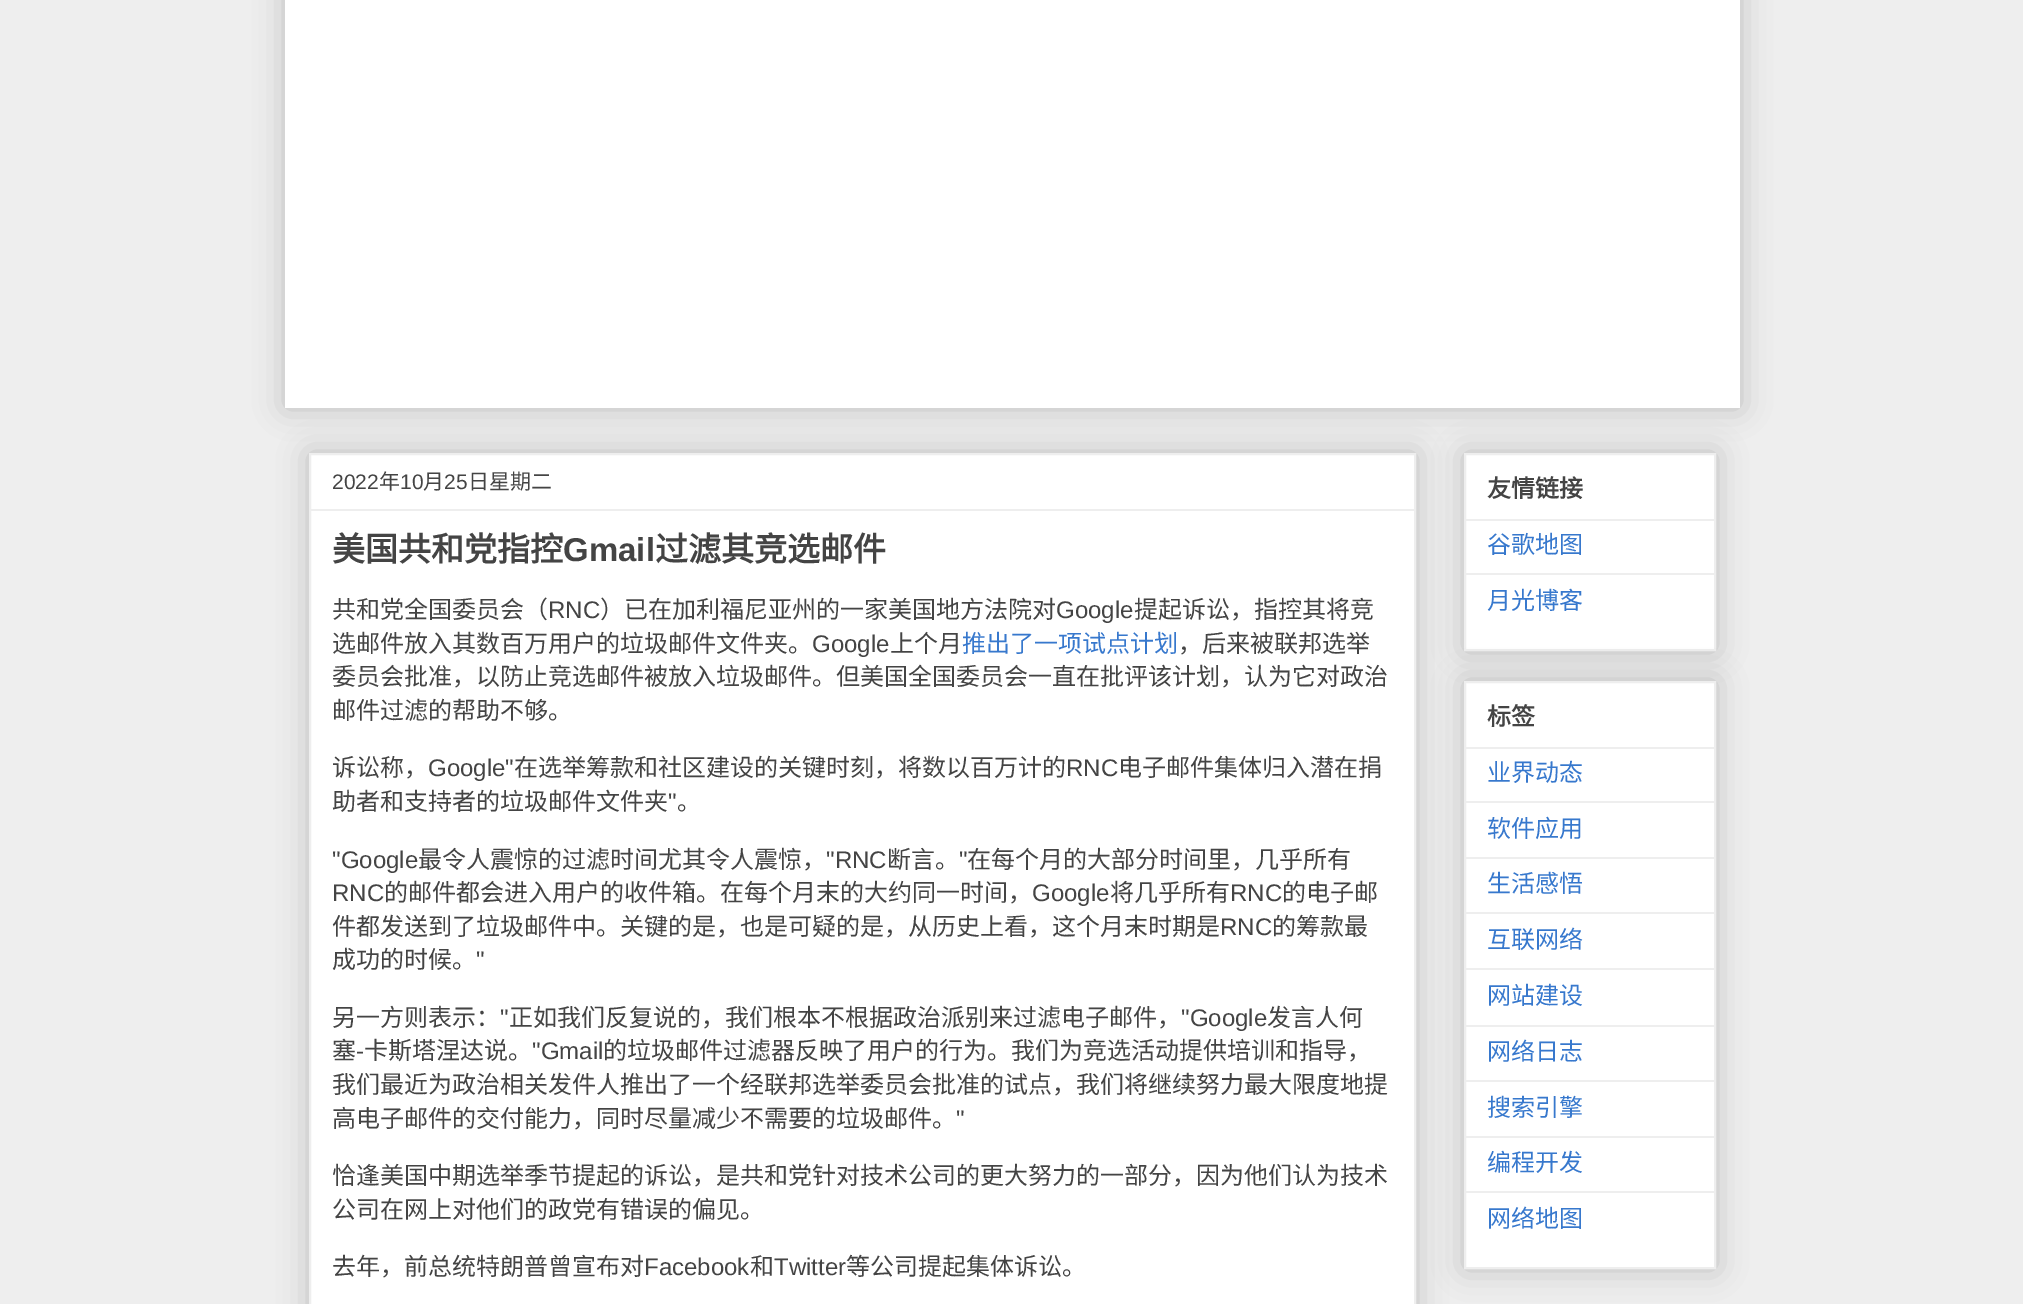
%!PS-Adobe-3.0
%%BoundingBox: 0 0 2023 1304
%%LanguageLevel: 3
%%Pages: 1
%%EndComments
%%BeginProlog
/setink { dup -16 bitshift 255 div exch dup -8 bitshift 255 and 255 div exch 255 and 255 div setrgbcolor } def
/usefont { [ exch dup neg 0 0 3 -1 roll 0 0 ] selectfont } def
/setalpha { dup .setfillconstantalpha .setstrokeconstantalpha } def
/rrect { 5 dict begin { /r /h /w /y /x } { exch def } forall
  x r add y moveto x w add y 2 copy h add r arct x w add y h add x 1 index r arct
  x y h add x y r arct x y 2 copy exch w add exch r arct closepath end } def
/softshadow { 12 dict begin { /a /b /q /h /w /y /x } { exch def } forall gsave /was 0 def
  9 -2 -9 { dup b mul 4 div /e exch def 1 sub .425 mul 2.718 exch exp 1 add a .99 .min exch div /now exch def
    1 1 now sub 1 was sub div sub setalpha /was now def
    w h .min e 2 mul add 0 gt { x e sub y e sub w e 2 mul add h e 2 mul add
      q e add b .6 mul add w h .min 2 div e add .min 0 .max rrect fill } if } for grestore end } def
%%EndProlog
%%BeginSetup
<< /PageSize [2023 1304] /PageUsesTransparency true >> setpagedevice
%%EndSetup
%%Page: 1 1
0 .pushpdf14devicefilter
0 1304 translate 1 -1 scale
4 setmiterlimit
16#EEEEEE setink
0 0 2023 1304 rectfill
16#000000 setink
285 -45 1455 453 0 15 0.2 softshadow
16#FFFFFF setink
285 0 1455 408 rectfill
16#000000 setink
309 453 1107 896 0 15 0.2 softshadow
16#FFFFFF setink
310 454 moveto 1415 454 lineto 1415 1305 lineto 310 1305 lineto closepath gsave fill grestore
16#EEEEEE setink
2 setlinewidth
stroke
/LiberationSans-Regular 21 usefont
16#444444 setink
332 489 moveto (2022) show
/NotoSansCJKSC-Regular 21 usefont
379 489 moveto (年) show
/LiberationSans-Regular 21 usefont
400 489 moveto (10) show
/NotoSansCJKSC-Regular 21 usefont
423 489 moveto (月) show
/LiberationSans-Regular 21 usefont
444 489 moveto (25) show
/NotoSansCJKSC-Regular 21 usefont
468 489 moveto (日星期二) show
16#EEEEEE setink
311 509 1104 2 rectfill
/NotoSansCJKSC-Bold 33 usefont
16#444444 setink
332 561 moveto (美国共和党指控) show
/LiberationSans-Bold 33 usefont
563 561 moveto (Gmail) show
/NotoSansCJKSC-Bold 33 usefont
655 561 moveto (过滤其竞选邮件) show
/NotoSansCJKSC-Regular 24 usefont
332 618 moveto (共和党全国委员会（) show
/LiberationSans-Regular 24 usefont
548 618 moveto (RNC) show
/NotoSansCJKSC-Regular 24 usefont
600 618 moveto (）已在加利福尼亚州的一家美国地方法院对) show
/LiberationSans-Regular 24 usefont
1056 618 moveto (Google) show
/NotoSansCJKSC-Regular 24 usefont
1134 618 moveto (提起诉讼，指控其将竞) show
332 652 moveto (选邮件放入其数百万用户的垃圾邮件文件夹。) show
/LiberationSans-Regular 24 usefont
812 652 moveto (Google) show
/NotoSansCJKSC-Regular 24 usefont
890 652 moveto (上个月) show
16#3778CD setink
962 652 moveto (推出了一项试点计划) show
16#444444 setink
[
    [(，后来被联邦选举) 1178 652]
    [(委员会批准，以防止竞选邮件被放入垃圾邮件。但美国全国委员会一直在批评该计划，认为它对政治) 332 685]
    [(邮件过滤的帮助不够。) 332 719]
    [(诉讼称，) 332 776]
] { aload pop moveto show } forall
/LiberationSans-Regular 24 usefont
428 776 moveto (Google") show
/NotoSansCJKSC-Regular 24 usefont
514 776 moveto (在选举筹款和社区建设的关键时刻，将数以百万计的) show
/LiberationSans-Regular 24 usefont
1066 776 moveto (RNC) show
/NotoSansCJKSC-Regular 24 usefont
1118 776 moveto (电子邮件集体归入潜在捐) show
332 810 moveto (助者和支持者的垃圾邮件文件夹) show
/LiberationSans-Regular 24 usefont
668 810 moveto (") show
/NotoSansCJKSC-Regular 24 usefont
677 810 moveto (。) show
/LiberationSans-Regular 24 usefont
332 868 moveto ("Google) show
/NotoSansCJKSC-Regular 24 usefont
418 868 moveto (最令人震惊的过滤时间尤其令人震惊，) show
/LiberationSans-Regular 24 usefont
826 868 moveto ("RNC) show
/NotoSansCJKSC-Regular 24 usefont
887 868 moveto (断言。) show
/LiberationSans-Regular 24 usefont
959 868 moveto (") show
/NotoSansCJKSC-Regular 24 usefont
967 868 moveto (在每个月的大部分时间里，几乎所有) show
/LiberationSans-Regular 24 usefont
332 901 moveto (RNC) show
/NotoSansCJKSC-Regular 24 usefont
384 901 moveto (的邮件都会进入用户的收件箱。在每个月末的大约同一时间，) show
/LiberationSans-Regular 24 usefont
1032 901 moveto (Google) show
/NotoSansCJKSC-Regular 24 usefont
1110 901 moveto (将几乎所有) show
/LiberationSans-Regular 24 usefont
1230 901 moveto (RNC) show
/NotoSansCJKSC-Regular 24 usefont
1282 901 moveto (的电子邮) show
332 935 moveto (件都发送到了垃圾邮件中。关键的是，也是可疑的是，从历史上看，这个月末时期是) show
/LiberationSans-Regular 24 usefont
1220 935 moveto (RNC) show
/NotoSansCJKSC-Regular 24 usefont
1272 935 moveto (的筹款最) show
332 968 moveto (成功的时候。) show
/LiberationSans-Regular 24 usefont
476 968 moveto (") show
/NotoSansCJKSC-Regular 24 usefont
332 1026 moveto (另一方则表示：) show
/LiberationSans-Regular 24 usefont
500 1026 moveto (") show
/NotoSansCJKSC-Regular 24 usefont
509 1026 moveto (正如我们反复说的，我们根本不根据政治派别来过滤电子邮件，) show
/LiberationSans-Regular 24 usefont
1181 1026 moveto ("Google) show
/NotoSansCJKSC-Regular 24 usefont
1267 1026 moveto (发言人何) show
332 1059 moveto (塞) show
/LiberationSans-Regular 24 usefont
356 1059 moveto (-) show
/NotoSansCJKSC-Regular 24 usefont
364 1059 moveto (卡斯塔涅达说。) show
/LiberationSans-Regular 24 usefont
532 1059 moveto ("Gmail) show
/NotoSansCJKSC-Regular 24 usefont
[
    [(的垃圾邮件过滤器反映了用户的行为。我们为竞选活动提供培训和指导，) 603 1059]
    [(我们最近为政治相关发件人推出了一个经联邦选举委员会批准的试点，我们将继续努力最大限度地提) 332 1093]
    [(高电子邮件的交付能力，同时尽量减少不需要的垃圾邮件。) 332 1127]
] { aload pop moveto show } forall
/LiberationSans-Regular 24 usefont
956 1127 moveto (") show
/NotoSansCJKSC-Regular 24 usefont
[
    [(恰逢美国中期选举季节提起的诉讼，是共和党针对技术公司的更大努力的一部分，因为他们认为技术) 332 1184]
    [(公司在网上对他们的政党有错误的偏见。) 332 1218]
    [(去年，前总统特朗普曾宣布对) 332 1275]
] { aload pop moveto show } forall
/LiberationSans-Regular 24 usefont
644 1275 moveto (Facebook) show
/NotoSansCJKSC-Regular 24 usefont
750 1275 moveto (和) show
/LiberationSans-Regular 24 usefont
774 1275 moveto (Twitter) show
/NotoSansCJKSC-Regular 24 usefont
846 1275 moveto (等公司提起集体诉讼。) show
16#000000 setink
1464 453 252 198 0 15 0.2 softshadow
16#FFFFFF setink
1465 454 moveto 1715 454 lineto 1715 650 lineto 1465 650 lineto closepath gsave fill grestore
16#EEEEEE setink
stroke
/NotoSansCJKSC-Bold 24 usefont
16#444444 setink
1487 497 moveto (友情链接) show
16#EEEEEE setink
1466 519 249 2 rectfill
/NotoSansCJKSC-Regular 24 usefont
16#3778CD setink
1487 553 moveto (谷歌地图) show
16#EEEEEE setink
1466 573 249 2 rectfill
16#3778CD setink
1487 609 moveto (月光博客) show
16#000000 setink
1464 681 252 588 0 15 0.2 softshadow
16#FFFFFF setink
1465 682 moveto 1715 682 lineto 1715 1268 lineto 1465 1268 lineto closepath gsave fill grestore
16#EEEEEE setink
stroke
/NotoSansCJKSC-Bold 24 usefont
16#444444 setink
1487 725 moveto (标签) show
16#EEEEEE setink
1466 747 249 2 rectfill
/NotoSansCJKSC-Regular 24 usefont
16#3778CD setink
1487 781 moveto (业界动态) show
16#EEEEEE setink
1466 801 249 2 rectfill
16#3778CD setink
1487 837 moveto (软件应用) show
16#EEEEEE setink
1466 857 249 2 rectfill
16#3778CD setink
1487 892 moveto (生活感悟) show
16#EEEEEE setink
1466 912 249 2 rectfill
16#3778CD setink
1487 948 moveto (互联网络) show
16#EEEEEE setink
1466 968 249 2 rectfill
16#3778CD setink
1487 1004 moveto (网站建设) show
16#EEEEEE setink
1466 1025 249 2 rectfill
16#3778CD setink
1487 1060 moveto (网络日志) show
16#EEEEEE setink
1466 1080 249 2 rectfill
16#3778CD setink
1487 1116 moveto (搜索引擎) show
16#EEEEEE setink
1466 1136 249 2 rectfill
16#3778CD setink
1487 1171 moveto (编程开发) show
16#EEEEEE setink
1466 1191 249 2 rectfill
16#3778CD setink
1487 1227 moveto (网络地图) show
.poppdf14devicefilter showpage
%%EOF
